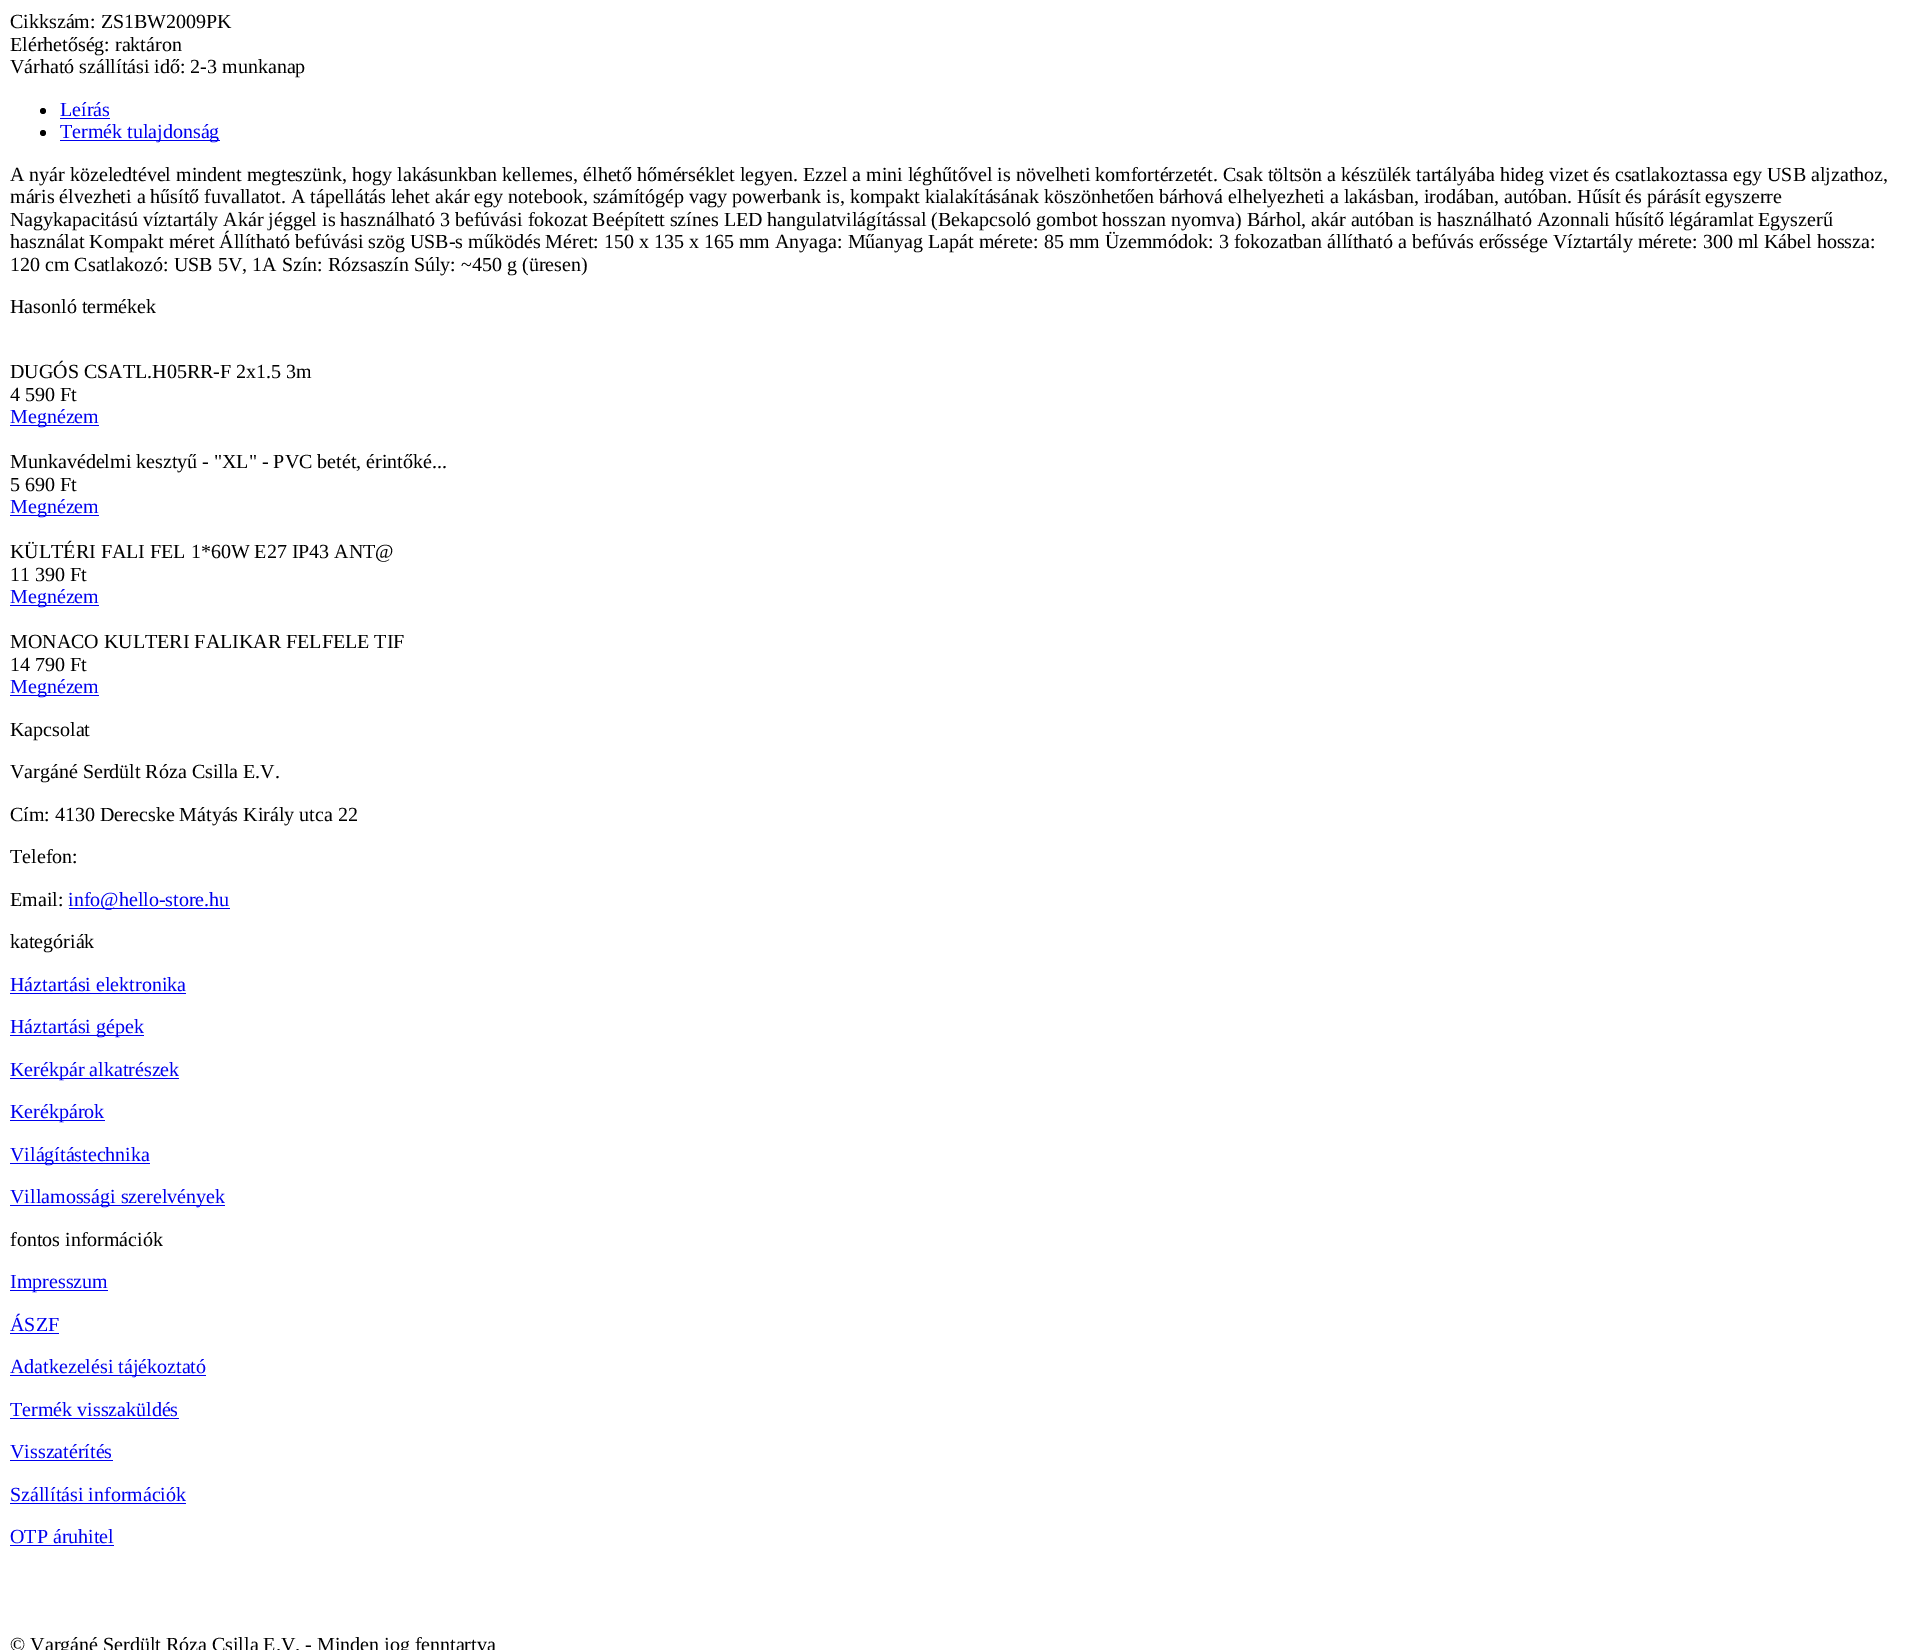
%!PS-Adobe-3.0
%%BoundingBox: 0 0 1917 1650
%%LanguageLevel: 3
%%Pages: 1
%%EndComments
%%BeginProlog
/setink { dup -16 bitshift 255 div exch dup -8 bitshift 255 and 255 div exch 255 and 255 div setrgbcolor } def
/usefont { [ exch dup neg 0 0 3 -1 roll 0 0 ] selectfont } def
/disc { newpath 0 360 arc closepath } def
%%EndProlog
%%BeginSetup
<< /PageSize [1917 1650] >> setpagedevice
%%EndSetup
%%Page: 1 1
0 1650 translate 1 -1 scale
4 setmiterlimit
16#FFFFFF setink
0 0 1917 1650 rectfill
/LiberationSerif-Regular 20 usefont
16#000000 setink
[
    [(Cikkszám: ZS1BW2009PK) 10 28]
    [(Elérhetőség: raktáron) 10 51]
    [(Várható szállítási idő: 2-3 munkanap) 10 73]
] { aload pop moveto show } forall
43 111 3 disc fill
16#0000EE setink
60 116 moveto (Leírás) show
60 118 50 1 rectfill
16#000000 setink
43 133 3 disc fill
16#0000EE setink
60 140 160 1 rectfill
60 138 moveto (Termék tulajdonság) show
16#000000 setink
[
    [(A nyár közeledtével mindent megteszünk, hogy lakásunkban kellemes, élhető hőmérséklet legyen. Ezzel a mini léghűtővel is növelheti komfortérzetét. Csak töltsön a készülék tartályába hideg vizet és csatlakoztassa egy USB aljzathoz,) 10 181]
    [(máris élvezheti a hűsítő fuvallatot. A tápellátás lehet akár egy notebook, számítógép vagy powerbank is, kompakt kialakításának köszönhetően bárhová elhelyezheti a lakásban, irodában, autóban. Hűsít és párásít egyszerre) 10 203]
    [(Nagykapacitású víztartály Akár jéggel is használható 3 befúvási fokozat Beépített színes LED hangulatvilágítással \(Bekapcsoló gombot hosszan nyomva\) Bárhol, akár autóban is használható Azonnali hűsítő légáramlat Egyszerű) 10 226]
    [(használat Kompakt méret Állítható befúvási szög USB-s működés Méret: 150 x 135 x 165 mm Anyaga: Műanyag Lapát mérete: 85 mm Üzemmódok: 3 fokozatban állítható a befúvás erőssége Víztartály mérete: 300 ml Kábel hossza:) 10 248]
    [(120 cm Csatlakozó: USB 5V, 1A Szín: Rózsaszín Súly: ~450 g \(üresen\)) 10 271]
    [(Hasonló termékek) 10 313]
    [(DUGÓS CSATL.H05RR-F 2x1.5 3m) 10 378]
    [(4 590 Ft) 10 401]
] { aload pop moveto show } forall
16#0000EE setink
10 425 89 1 rectfill
10 423 moveto (Megnézem) show
16#000000 setink
10 468 moveto (Munkavédelmi kesztyű - "XL" - PVC betét, érintőké...) show
10 491 moveto (5 690 Ft) show
16#0000EE setink
10 515 89 1 rectfill
10 513 moveto (Megnézem) show
16#000000 setink
10 558 moveto (KÜLTÉRI FALI FEL 1*60W E27 IP43 ANT@) show
10 581 moveto (11 390 Ft) show
16#0000EE setink
10 605 89 1 rectfill
10 603 moveto (Megnézem) show
16#000000 setink
10 648 moveto (MONACO KULTERI FALIKAR FELFELE TIF) show
10 671 moveto (14 790 Ft) show
16#0000EE setink
10 695 89 1 rectfill
10 693 moveto (Megnézem) show
16#000000 setink
[
    [(Kapcsolat) 10 736]
    [(Vargáné Serdült Róza Csilla E.V.) 10 778]
    [(Cím: 4130 Derecske Mátyás Király utca 22) 10 821]
    [(Telefon:) 10 863]
    [(Email:) 10 906]
] { aload pop moveto show } forall
16#0000EE setink
69 908 161 1 rectfill
68 906 moveto (info@hello-store.hu) show
16#000000 setink
10 948 moveto (kategóriák) show
16#0000EE setink
10 991 moveto (Háztartási elektronika) show
10 993 176 1 rectfill
10 1035 134 1 rectfill
10 1033 moveto (Háztartási gépek) show
10 1078 169 1 rectfill
10 1076 moveto (Kerékpár alkatrészek) show
10 1120 95 1 rectfill
10 1118 moveto (Kerékpárok) show
10 1163 140 1 rectfill
10 1161 moveto (Világítástechnika) show
10 1205 215 1 rectfill
10 1203 moveto (Villamossági szerelvények) show
16#000000 setink
10 1246 moveto (fontos információk) show
16#0000EE setink
10 1290 98 1 rectfill
10 1288 moveto (Impresszum) show
10 1331 moveto (ÁSZF) show
10 1333 49 1 rectfill
10 1375 196 1 rectfill
10 1373 moveto (Adatkezelési tájékoztató) show
10 1416 moveto (Termék visszaküldés) show
10 1418 169 1 rectfill
10 1458 moveto (Visszatérítés) show
10 1460 103 1 rectfill
10 1501 moveto (Szállítási információk) show
10 1503 176 1 rectfill
10 1543 moveto (OTP áruhitel) show
10 1545 104 1 rectfill
16#000000 setink
10 1651 moveto (© Vargáné Serdült Róza Csilla E.V. - Minden jog fenntartva) show
showpage
%%EOF
